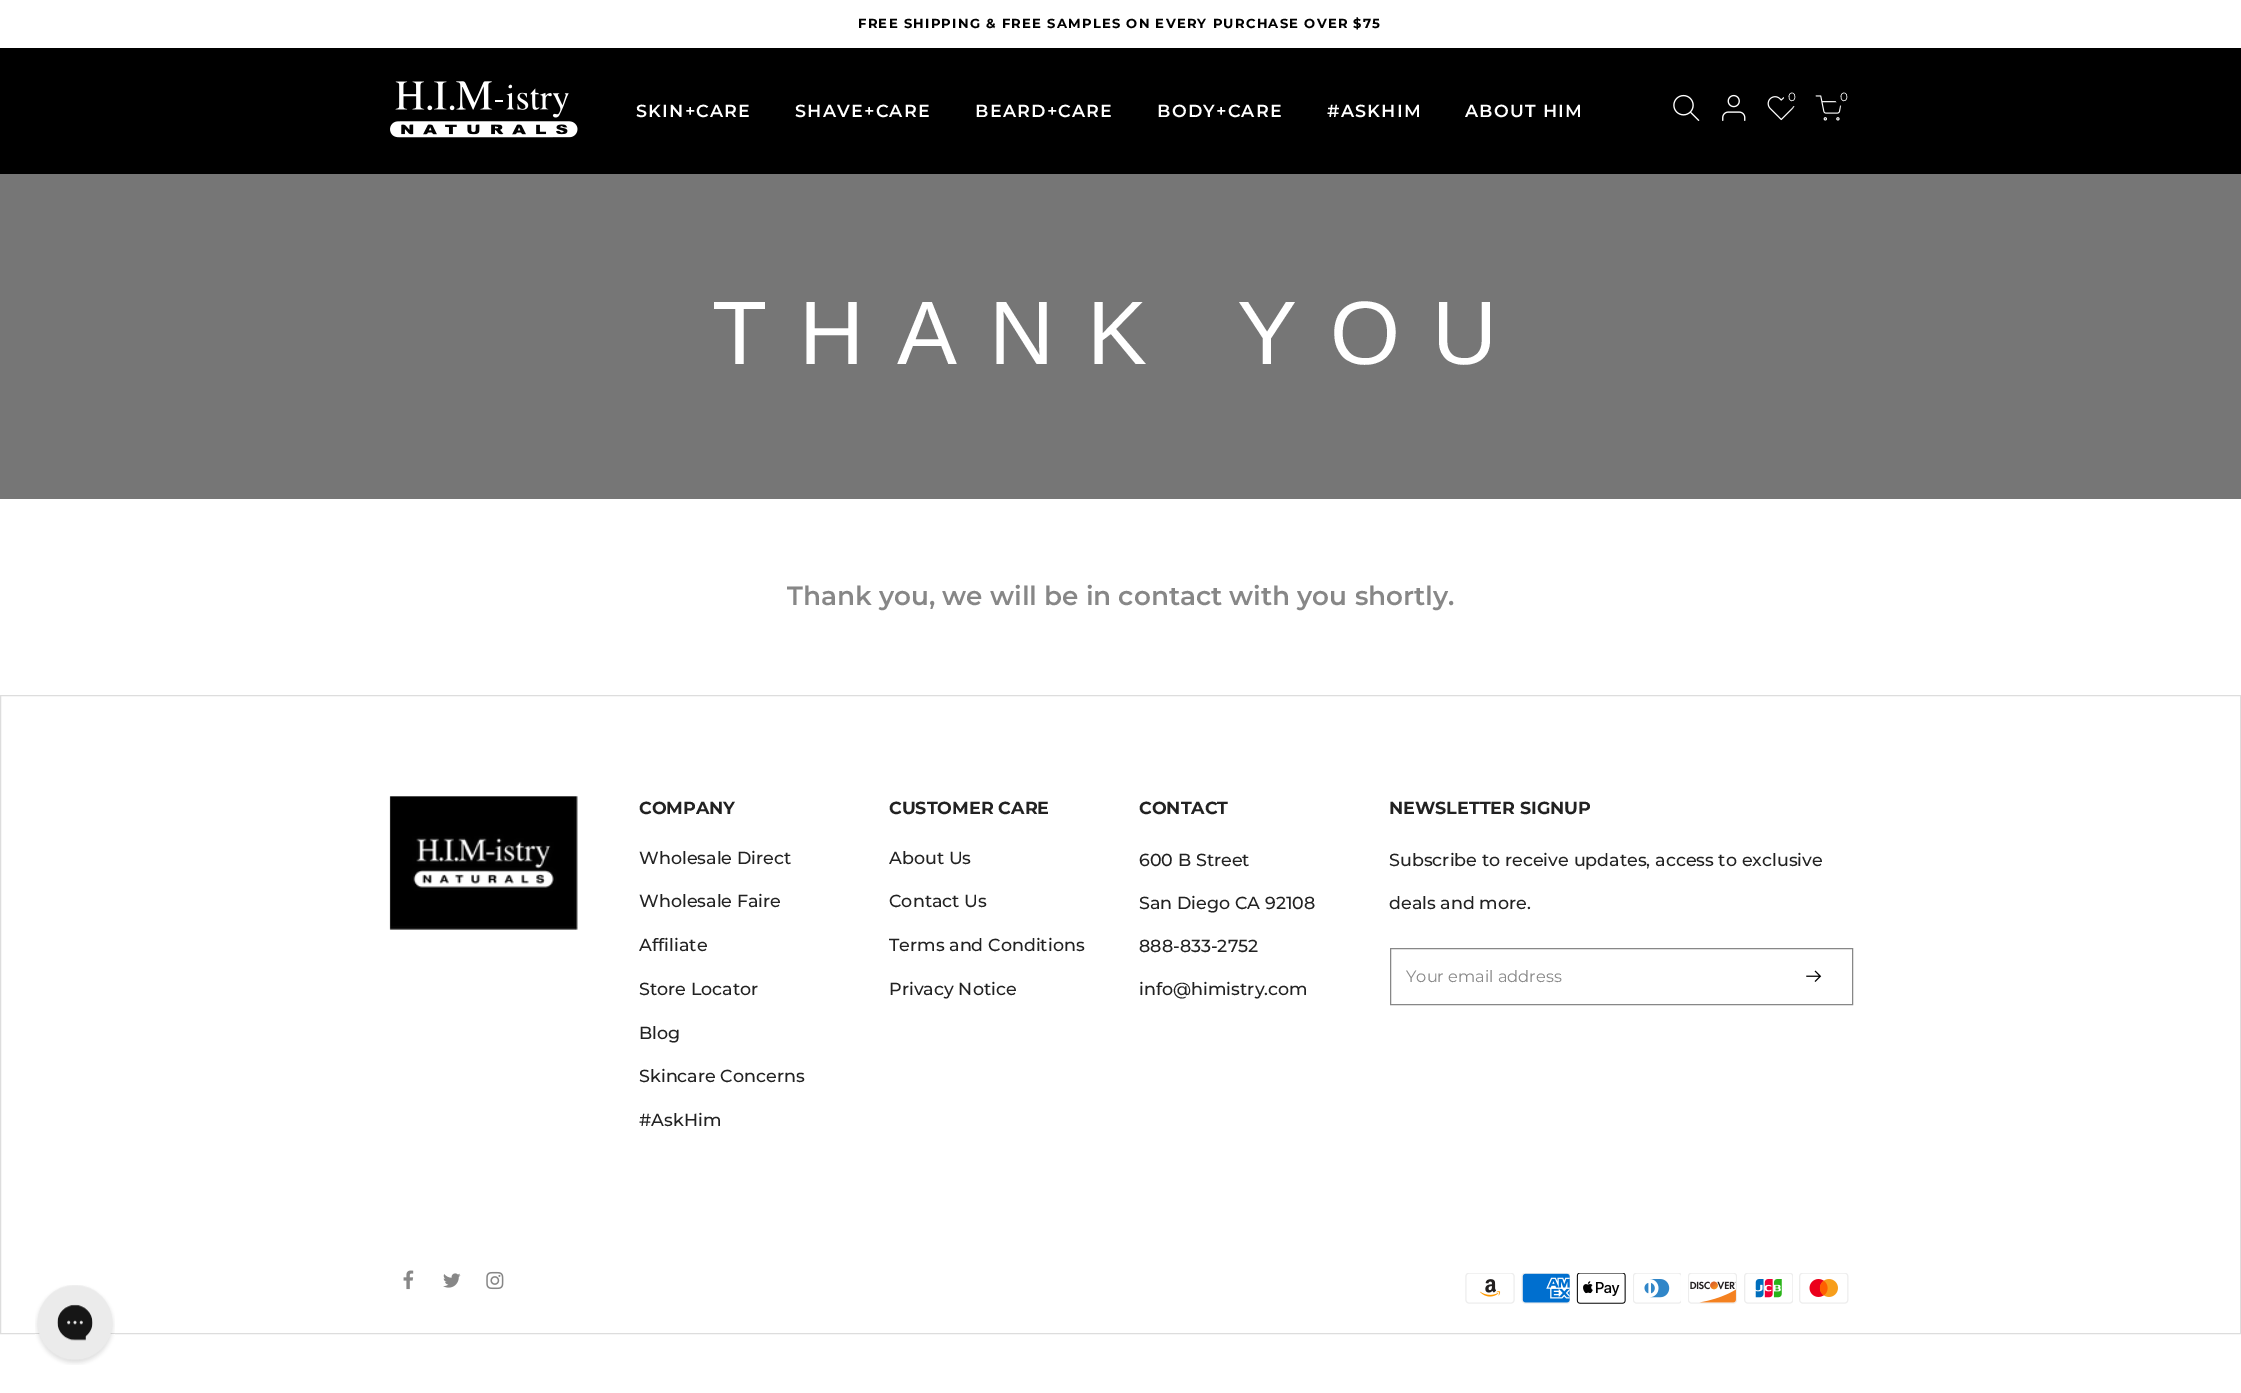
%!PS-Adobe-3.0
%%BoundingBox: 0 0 2241 1393
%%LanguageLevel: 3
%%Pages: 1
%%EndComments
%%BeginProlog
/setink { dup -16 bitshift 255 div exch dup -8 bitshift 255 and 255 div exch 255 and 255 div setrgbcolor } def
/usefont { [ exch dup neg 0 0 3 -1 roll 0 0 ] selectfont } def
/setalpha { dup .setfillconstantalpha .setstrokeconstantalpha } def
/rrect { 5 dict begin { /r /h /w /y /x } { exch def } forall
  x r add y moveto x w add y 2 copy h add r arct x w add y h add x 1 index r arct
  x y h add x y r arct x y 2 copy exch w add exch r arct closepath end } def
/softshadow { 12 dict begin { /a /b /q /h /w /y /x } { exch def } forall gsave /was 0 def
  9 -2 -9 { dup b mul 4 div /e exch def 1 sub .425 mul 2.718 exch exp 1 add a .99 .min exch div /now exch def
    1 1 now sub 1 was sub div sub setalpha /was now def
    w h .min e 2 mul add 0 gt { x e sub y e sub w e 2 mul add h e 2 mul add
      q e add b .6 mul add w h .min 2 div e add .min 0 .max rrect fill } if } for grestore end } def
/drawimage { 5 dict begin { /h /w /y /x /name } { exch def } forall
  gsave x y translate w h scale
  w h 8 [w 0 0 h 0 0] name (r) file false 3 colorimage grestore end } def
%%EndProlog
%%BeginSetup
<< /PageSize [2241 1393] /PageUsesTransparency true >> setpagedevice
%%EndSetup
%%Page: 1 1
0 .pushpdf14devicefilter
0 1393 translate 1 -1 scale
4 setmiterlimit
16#FFFFFF setink
0 0 2241 1393 rectfill
/Montserrat-Bold 13.1 usefont
16#000000 setink
858 28 moveto 1.25 0 (FREE SHIPPING & FREE SAMPLES ON EVERY PURCHASE OVER $75) ashow
0 48 2241 126 rectfill
(img1.raw) 390 81 188 57 drawimage
(img2.raw) 1673 94 27 27 drawimage
(img3.raw) 1722 94 24 27 drawimage
(img4.raw) 1767 96 28 25 drawimage
1785 89 19 19 9.5 2 0.3 softshadow
1784 88 19 18 9 rrect fill
/Montserrat-Regular 12 usefont
16#FFFFFF setink
1788 101 moveto (0) show
(img5.raw) 1815 95 27 26 drawimage
16#000000 setink
1836 89 19 19 9.5 2 0.3 softshadow
1835 88 19 18 9 rrect fill
16#FFFFFF setink
1840 101 moveto (0) show
/Montserrat-SemiBold 17.5 usefont
636 117 moveto 1.25 0 (SKIN+CARE) ashow
795 117 moveto 1.25 0 (SHAVE+CARE) ashow
975 117 moveto 1.25 0 (BEARD+CARE) ashow
1157 117 moveto 1.25 0 (BODY+CARE) ashow
1327 117 moveto 1.25 0 (#ASKHIM) ashow
1465 117 moveto 1.25 0 (ABOUT HIM) ashow
16#767676 setink
0 174 2241 325 rectfill
/LiberationSans-Regular 90 usefont
16#FFFFFF setink
712 364 moveto 32.5 0 (THANK YOU) ashow
/Montserrat-SemiBold 26.25 usefont
16#878787 setink
787 605 moveto (Thank you, we will be in contact with you shortly.) show
16#DDDDDD setink
0.5 695.5 2240 638 rectstroke
(img6.raw) 389 796 189 134 drawimage
/Montserrat-Bold 17.5 usefont
16#222222 setink
639 814 moveto (COMPANY) show
/Montserrat-Medium 17.5 usefont
[
    [(Wholesale Direct) 639 864]
    [(Wholesale Faire) 639 907]
    [(Affiliate) 639 951]
    [(Store Locator) 639 995]
    [(Blog) 639 1039]
    [(Skincare Concerns) 639 1082]
    [(#AskHim) 639 1126]
] { aload pop moveto show } forall
/Montserrat-Bold 17.5 usefont
889 814 moveto (CUSTOMER CARE) show
/Montserrat-Medium 17.5 usefont
[
    [(About Us) 889 864]
    [(Contact Us) 889 907]
    [(Terms and Conditions) 889 951]
    [(Privacy Notice) 889 995]
] { aload pop moveto show } forall
/Montserrat-Bold 17.5 usefont
1139 814 moveto (CONTACT) show
/Montserrat-Medium 17.5 usefont
[
    [(600 B Street) 1139 866]
    [(San Diego CA 92108) 1139 909]
    [(888-833-2752) 1139 952]
    [(info@himistry.com) 1139 995]
] { aload pop moveto show } forall
/Montserrat-Bold 17.5 usefont
1389 814 moveto (NEWSLETTER SIGNUP) show
/Montserrat-Medium 17.5 usefont
1389 866 moveto (Subscribe to receive updates, access to exclusive) show
1389 909 moveto (deals and more.) show
16#878787 setink
1390.5 948.5 462 56 rectstroke
/Montserrat-Regular 16.25 usefont
1406 982 moveto (Your email address) show
(img7.raw) 1806 970 16 12 drawimage
(img8.raw) 403 1270 11 20 drawimage
(img9.raw) 443 1273 18 15 drawimage
(img10.raw) 486 1271 18 19 drawimage
(img11.raw) 1465 1273 50 31 drawimage
(img12.raw) 1521 1273 49 31 drawimage
(img13.raw) 1576 1273 50 31 drawimage
(img14.raw) 1633 1273 48 31 drawimage
(img15.raw) 1688 1273 49 31 drawimage
(img16.raw) 1744 1273 49 31 drawimage
(img17.raw) 1799 1273 50 31 drawimage
(img18.raw) 35 1285 80 80 drawimage
.poppdf14devicefilter showpage
%%EOF
